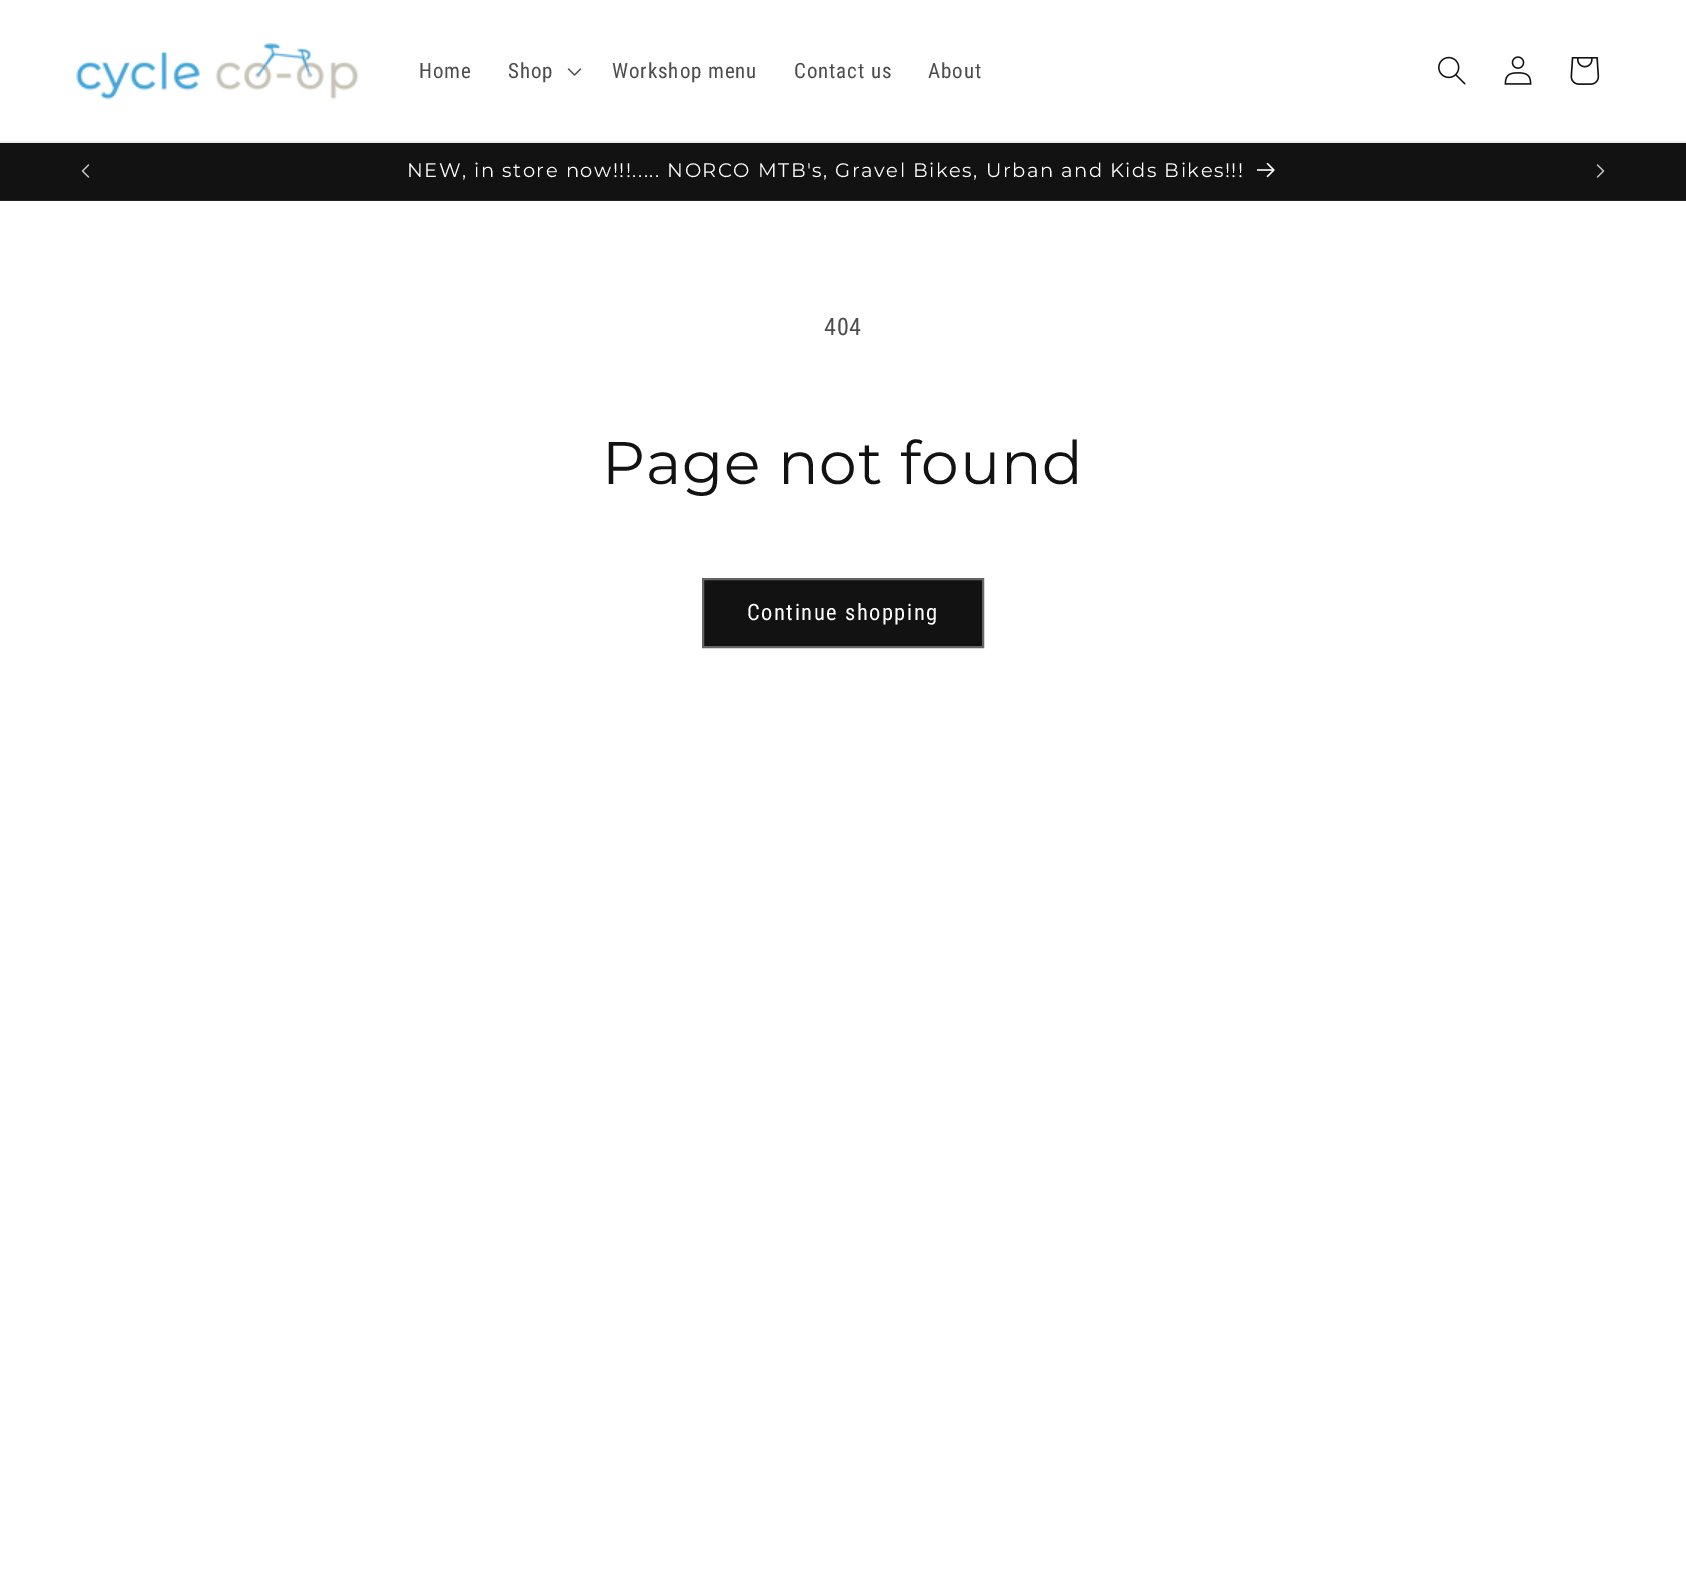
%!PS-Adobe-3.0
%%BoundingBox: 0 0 1686 1584
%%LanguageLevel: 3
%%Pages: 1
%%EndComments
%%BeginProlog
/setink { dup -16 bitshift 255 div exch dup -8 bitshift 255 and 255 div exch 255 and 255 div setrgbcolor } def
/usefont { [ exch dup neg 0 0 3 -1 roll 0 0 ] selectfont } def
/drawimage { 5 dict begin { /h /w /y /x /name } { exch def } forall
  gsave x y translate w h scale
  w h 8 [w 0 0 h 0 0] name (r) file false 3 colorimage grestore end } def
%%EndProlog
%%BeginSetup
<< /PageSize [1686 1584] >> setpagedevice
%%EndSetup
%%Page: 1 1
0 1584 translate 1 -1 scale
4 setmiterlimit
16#FFFFFF setink
0 0 1686 1584 rectfill
16#ECECEC setink
0 141 1686 2 rectfill
(img1.raw) 76 43 283 57 drawimage
/RobotoCondensed-Regular 21 usefont
16#4D4D4D setink
419 78 moveto 0.9 0 (Home) ashow
508 78 moveto 0.9 0 (Shop) ashow
(img2.raw) 567 68 15 8 drawimage
612 78 moveto 0.9 0 (Workshop menu) ashow
794 78 moveto 0.9 0 (Contact us) ashow
928 78 moveto 0.9 0 (About) ashow
(img3.raw) 1438 56 28 29 drawimage
(img4.raw) 1504 56 28 29 drawimage
(img5.raw) 1570 57 30 28 drawimage
16#121212 setink
0 143 1686 57 rectfill
16#252525 setink
0 200 1686 1 rectfill
(img6.raw) 81 164 9 14 drawimage
/Montserrat-Regular 19.5 usefont
16#FFFFFF setink
407 177 moveto 1.5 0 (NEW, in store now!!!..... NORCO MTB's, Gravel Bikes, Urban and Kids Bikes!!!) ashow
(img7.raw) 1257 162 18 16 drawimage
(img8.raw) 1596 164 9 14 drawimage
/RobotoCondensed-Regular 24 usefont
16#4D4D4D setink
824 335 moveto 0.9 0 (404) ashow
/Montserrat-Regular 60 usefont
16#121212 setink
602 484 moveto 0.9 0 (Page not found) ashow
704 580 278 66 rectfill
16#656565 setink
2 setlinewidth
703 579 280 68 rectstroke
/RobotoCondensed-Regular 22.5 usefont
16#FFFFFF setink
747 620 moveto 1.5 0 (Continue shopping) ashow
showpage
%%EOF
